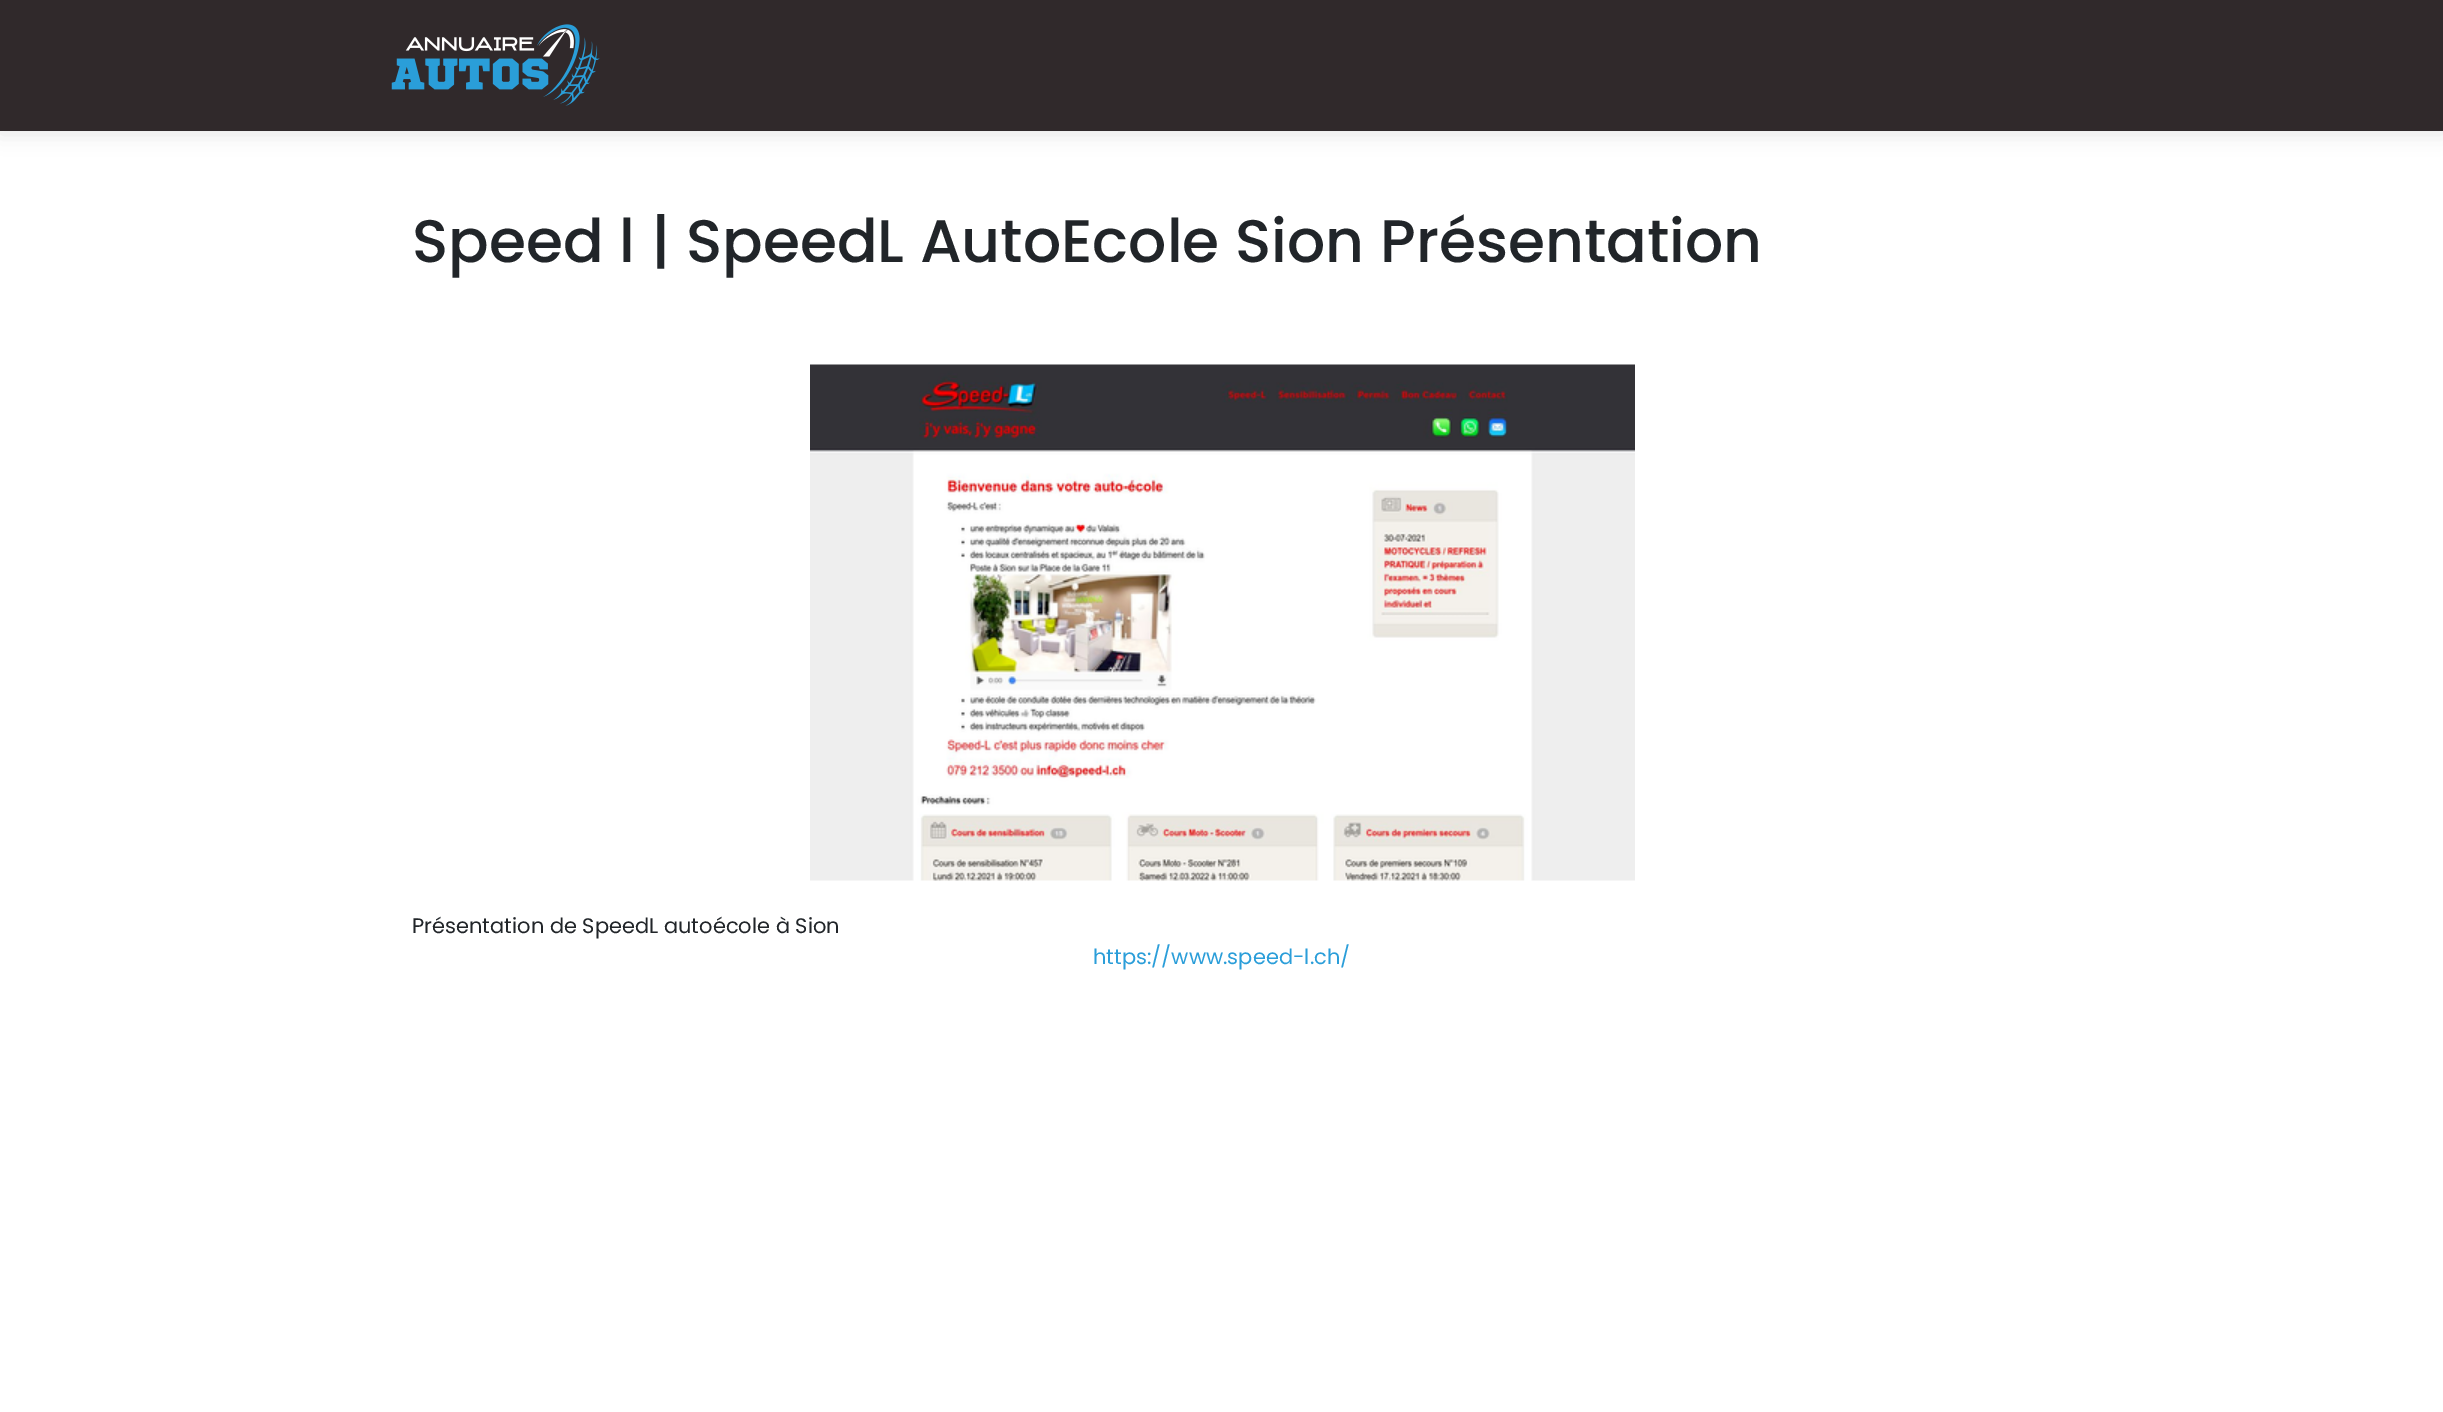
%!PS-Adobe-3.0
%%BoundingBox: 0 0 2443 1412
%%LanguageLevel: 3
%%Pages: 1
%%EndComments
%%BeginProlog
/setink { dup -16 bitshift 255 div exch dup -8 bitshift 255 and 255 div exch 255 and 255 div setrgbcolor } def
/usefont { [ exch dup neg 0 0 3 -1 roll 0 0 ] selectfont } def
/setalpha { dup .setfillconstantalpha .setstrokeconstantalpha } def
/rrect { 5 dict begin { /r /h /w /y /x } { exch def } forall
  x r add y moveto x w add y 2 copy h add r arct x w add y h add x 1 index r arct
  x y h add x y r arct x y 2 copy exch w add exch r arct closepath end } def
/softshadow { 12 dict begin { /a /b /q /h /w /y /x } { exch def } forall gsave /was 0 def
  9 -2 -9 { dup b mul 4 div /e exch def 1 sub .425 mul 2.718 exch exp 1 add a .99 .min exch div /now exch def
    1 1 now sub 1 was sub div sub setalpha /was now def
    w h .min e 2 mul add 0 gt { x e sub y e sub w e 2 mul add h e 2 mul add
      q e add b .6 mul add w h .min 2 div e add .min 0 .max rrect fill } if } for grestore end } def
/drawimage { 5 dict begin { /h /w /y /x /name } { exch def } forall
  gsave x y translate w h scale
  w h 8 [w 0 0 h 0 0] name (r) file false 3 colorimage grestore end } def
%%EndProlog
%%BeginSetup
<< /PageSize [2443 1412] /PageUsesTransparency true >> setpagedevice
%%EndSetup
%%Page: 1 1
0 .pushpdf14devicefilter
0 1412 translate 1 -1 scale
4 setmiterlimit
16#FFFFFF setink
0 0 2443 1412 rectfill
16#000000 setink
0 3 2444 131 0 10 0.1 softshadow
16#30292B setink
0 0 2443 131 rectfill
(img1.raw) 391 24 209 82 drawimage
/Poppins-Medium 60 usefont
16#212529 setink
412 262 moveto (Speed l | SpeedL AutoEcole Sion Présentation) show
(img2.raw) 810 364 825 517 drawimage
/Poppins-Regular 21 usefont
412 933 moveto (Présentation de SpeedL autoécole à Sion) show
16#2B9ED9 setink
1093 964 moveto (https://www.speed-l.ch/) show
.poppdf14devicefilter showpage
%%EOF
